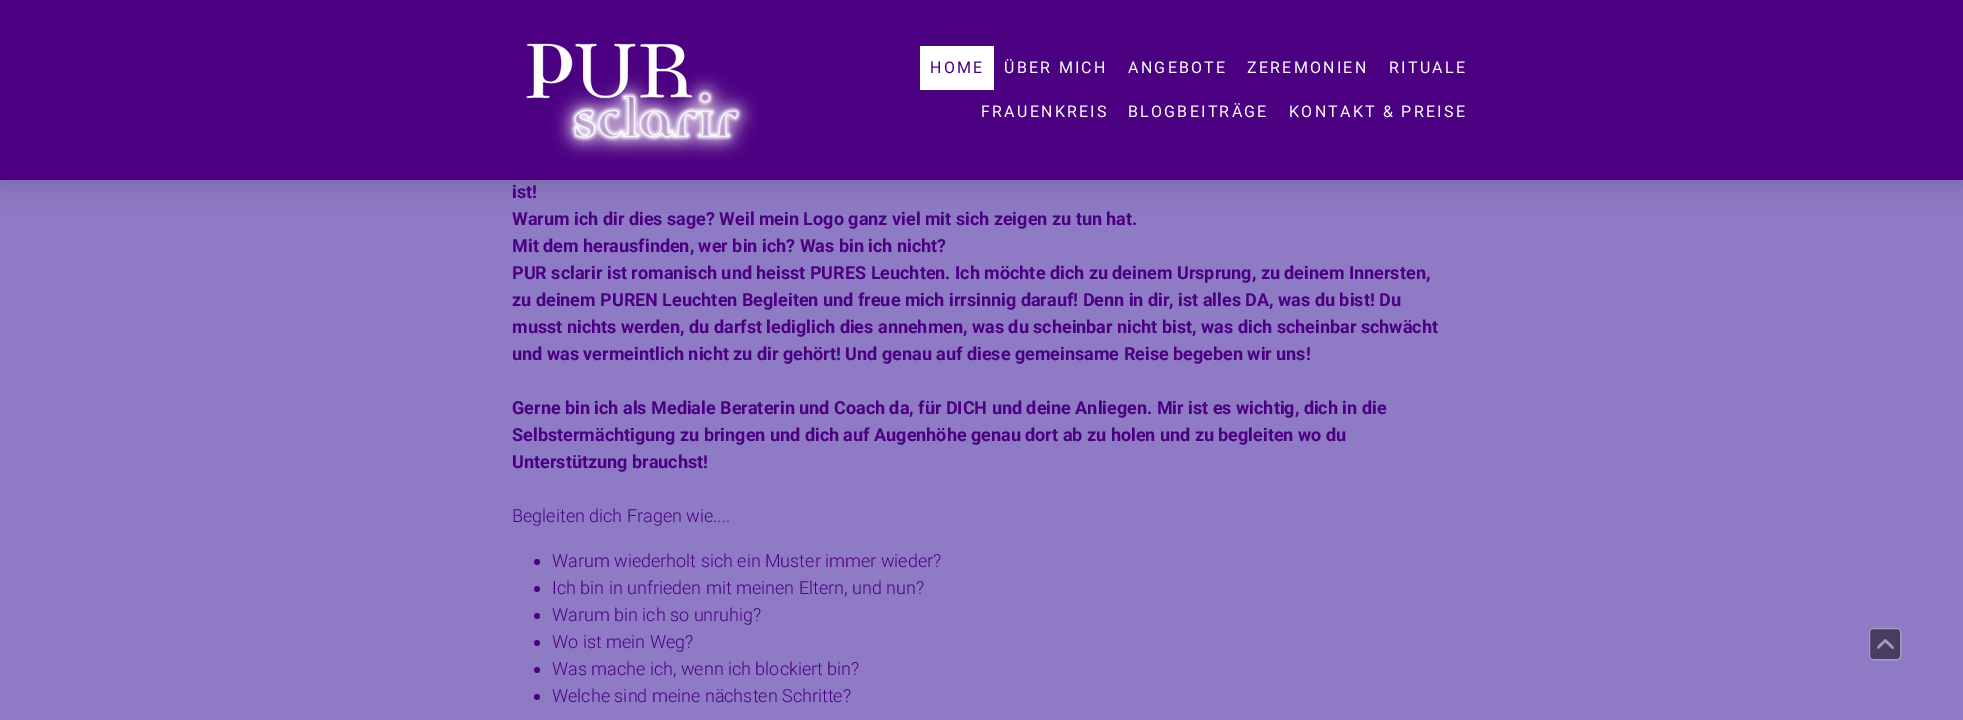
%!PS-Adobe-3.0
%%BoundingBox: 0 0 1963 720
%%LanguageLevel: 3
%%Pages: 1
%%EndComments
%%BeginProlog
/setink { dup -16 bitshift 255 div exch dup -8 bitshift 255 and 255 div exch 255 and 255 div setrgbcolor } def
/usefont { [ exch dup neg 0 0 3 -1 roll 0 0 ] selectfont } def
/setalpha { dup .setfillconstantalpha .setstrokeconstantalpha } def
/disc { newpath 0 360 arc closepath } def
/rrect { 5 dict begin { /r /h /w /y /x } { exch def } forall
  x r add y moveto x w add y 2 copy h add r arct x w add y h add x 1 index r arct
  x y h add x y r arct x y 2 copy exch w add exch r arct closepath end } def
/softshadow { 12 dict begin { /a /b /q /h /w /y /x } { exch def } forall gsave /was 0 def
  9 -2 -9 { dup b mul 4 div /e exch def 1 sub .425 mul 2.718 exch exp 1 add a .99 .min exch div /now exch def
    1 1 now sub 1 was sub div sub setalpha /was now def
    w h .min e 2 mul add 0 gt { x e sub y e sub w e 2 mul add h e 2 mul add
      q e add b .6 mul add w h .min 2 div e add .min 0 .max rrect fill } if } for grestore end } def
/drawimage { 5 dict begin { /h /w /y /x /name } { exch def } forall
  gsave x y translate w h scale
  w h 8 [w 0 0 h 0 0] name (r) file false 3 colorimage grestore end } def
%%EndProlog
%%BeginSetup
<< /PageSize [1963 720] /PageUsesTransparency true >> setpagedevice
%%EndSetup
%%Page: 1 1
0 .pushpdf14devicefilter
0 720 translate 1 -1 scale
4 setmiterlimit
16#8E7AC5 setink
0 0 1963 720 rectfill
16#000000 setink
0 0 1963 180 0 15 0.2 softshadow
16#4B0082 setink
0 0 1963 180 rectfill
(img1.raw) 525 42 234 118 drawimage
16#FFFFFF setink
920 46 74 44 rectfill
/Roboto-Regular 16 usefont
16#4B0082 setink
930 73 moveto 2.25 0 (HOME) ashow
16#FFFFFF setink
1004 73 moveto 2.25 0 (ÜBER MICH) ashow
1128 73 moveto 2.25 0 (ANGEBOTE) ashow
1247 73 moveto 2.25 0 (ZEREMONIEN) ashow
1389 73 moveto 2.25 0 (RITUALE) ashow
981 117 moveto 2.25 0 (FRAUENKREIS) ashow
1128 117 moveto 2.25 0 (BLOGBEITRÄGE) ashow
1289 117 moveto 2.25 0 (KONTAKT & PREISE) ashow
/Roboto-Bold 18 usefont
16#4B0082 setink
[
    [(ist!) 512 198]
    [(Warum ich dir dies sage? Weil mein Logo ganz viel mit sich zeigen zu tun hat.) 512 225]
    [(Mit dem herausfinden, wer bin ich? Was bin ich nicht?) 512 252]
    [(PUR sclarir ist romanisch und heisst PURES Leuchten. Ich möchte dich zu deinem Ursprung, zu deinem Innersten,) 512 279]
    [(zu deinem PUREN Leuchten Begleiten und freue mich irrsinnig darauf! Denn in dir, ist alles DA, was du bist! Du) 512 306]
    [(musst nichts werden, du darfst lediglich dies annehmen, was du scheinbar nicht bist, was dich scheinbar schwächt) 512 333]
    [(und was vermeintlich nicht zu dir gehört! Und genau auf diese gemeinsame Reise begeben wir uns!) 512 360]
    [(Gerne bin ich als Mediale Beraterin und Coach da, für DICH und deine Anliegen. Mir ist es wichtig, dich in die) 512 414]
    [(Selbstermächtigung zu bringen und dich auf Augenhöhe genau dort ab zu holen und zu begleiten wo du) 512 441]
    [(Unterstützung brauchst!) 512 468]
] { aload pop moveto show } forall
/Roboto-Light 18 usefont
512 522 moveto (Begleiten dich Fragen wie....) show
537 562 3 disc fill
552 567 moveto (Warum wiederholt sich ein Muster immer wieder?) show
537 589 3 disc fill
552 594 moveto (Ich bin in unfrieden mit meinen Eltern, und nun?) show
537 616 3 disc fill
552 621 moveto (Warum bin ich so unruhig?) show
537 643 3 disc fill
552 648 moveto (Wo ist mein Weg?) show
537 670 3 disc fill
552 675 moveto (Was mache ich, wenn ich blockiert bin?) show
537 697 3 disc fill
552 702 moveto (Welche sind meine nächsten Schritte?) show
16#473D63 setink
1869 628 32 32 4 rrect fill
0.5 setalpha
16#FFFFFF setink
1869.5 628.5 31 31 3.5 rrect stroke
1 setalpha
(img2.raw) 1877 639 17 10 drawimage
.poppdf14devicefilter showpage
%%EOF
